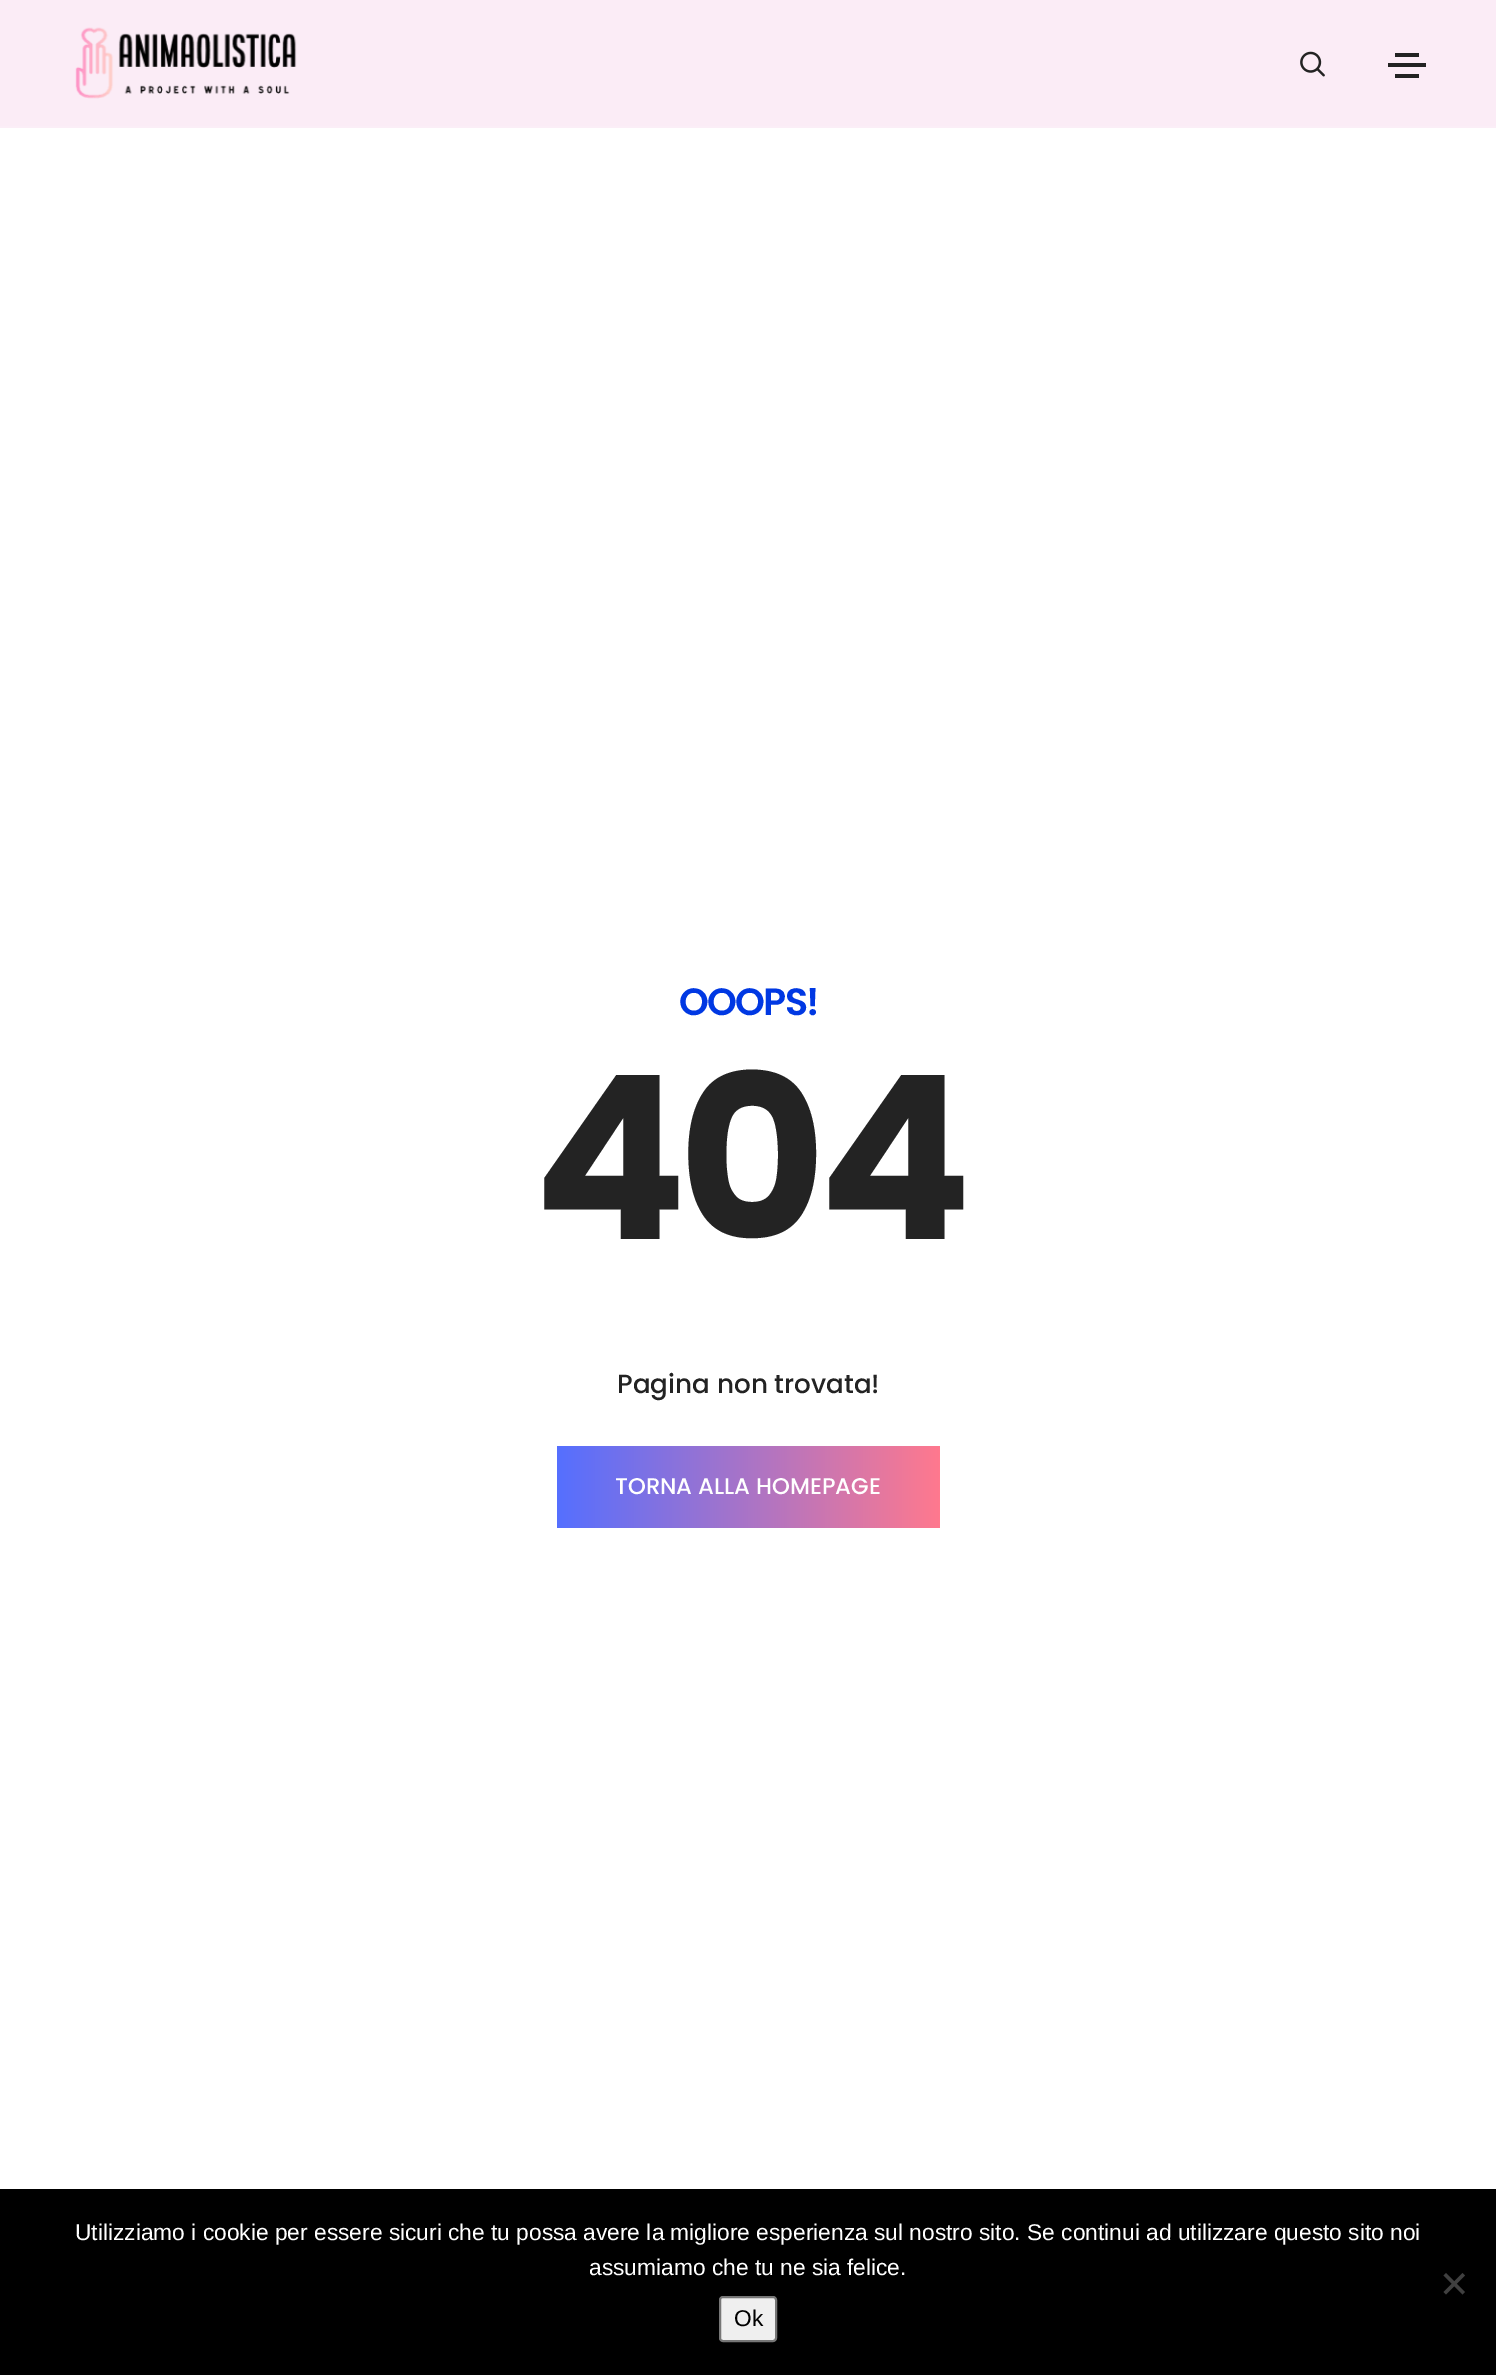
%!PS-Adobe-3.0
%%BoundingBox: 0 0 1496 2375
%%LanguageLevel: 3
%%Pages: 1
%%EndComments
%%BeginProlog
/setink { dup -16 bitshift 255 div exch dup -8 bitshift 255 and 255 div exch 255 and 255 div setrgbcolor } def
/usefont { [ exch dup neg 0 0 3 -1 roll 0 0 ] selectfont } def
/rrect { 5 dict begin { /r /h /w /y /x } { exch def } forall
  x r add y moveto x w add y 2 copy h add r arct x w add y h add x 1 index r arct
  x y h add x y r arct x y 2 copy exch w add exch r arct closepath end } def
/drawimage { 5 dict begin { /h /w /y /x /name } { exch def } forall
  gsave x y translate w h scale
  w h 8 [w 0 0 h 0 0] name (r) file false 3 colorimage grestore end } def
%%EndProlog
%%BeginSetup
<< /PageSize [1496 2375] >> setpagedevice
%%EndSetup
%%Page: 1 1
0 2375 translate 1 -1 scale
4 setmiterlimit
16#FFFFFF setink
0 0 1496 2375 rectfill
16#FBECF6 setink
0 0 1496 126 rectfill
16#FBEEF7 setink
0 126 1496 2 rectfill
(img1.raw) 75 27 222 72 drawimage
(img2.raw) 1300 51 25 26 drawimage
[
    [1395 53 24 4 16#232323]
    [1388 63 38 4 16#232323]
    [1395 74 24 4 16#232323]
] { aload pop setink rectfill } forall
/Poppins-SemiBold 38 usefont
16#0038E3 setink
679 1015 moveto -1.75 0 (OOOPS!) ashow
/Poppins-Bold 228 usefont
16#232323 setink
533 1239 moveto -9 0 (404) ashow
/Poppins-Medium 26.25 usefont
617 1393 moveto (Pagina non trovata!) show
gsave 557 1446 moveto 940 1446 lineto 940 1528 lineto 557 1528 lineto closepath clip newpath
<< /ShadingType 2 /ColorSpace /DeviceRGB /Coords [557 1487 1323 1487] /Extend [true true] /Function << /FunctionType 3 /Domain [0 1] /Functions [<< /FunctionType 2 /Domain [0 1] /C0 [0.333 0.435 1] /C1 [1 0.475 0.557] /N 1 >> << /FunctionType 2 /Domain [0 1] /C0 [1 0.475 0.557] /C1 [0.333 0.435 1] /N 1 >>] /Bounds [0.5] /Encode [0 1 0 1] >> >> shfill grestore
/Poppins-Medium 22.75 usefont
16#FFFFFF setink
615 1494 moveto (TORNA ALLA HOMEPAGE) show
16#000000 setink
0 2189 1496 186 rectfill
/LiberationSans-Regular 22.75 usefont
16#FFFFFF setink
75 2240 moveto (Utilizziamo i cookie per essere sicuri che tu possa avere la migliore esperienza sul nostro sito. Se continui ad utilizzare questo sito noi) show
589 2275 moveto (assumiamo che tu ne sia felice.) show
16#404040 setink
1462.5 2273 moveto 1465 2275.5 lineto 1446 2294.5 lineto 1443.5 2292 lineto closepath fill
1443.5 2275.5 moveto 1446 2273 lineto 1465 2292 lineto 1462.5 2294.5 lineto closepath fill
16#EFEFEF setink
720 2297 56 44 3 rrect gsave fill grestore
16#767676 setink
2 setlinewidth
stroke
16#000000 setink
734 2326 moveto (Ok) show
showpage
%%EOF
